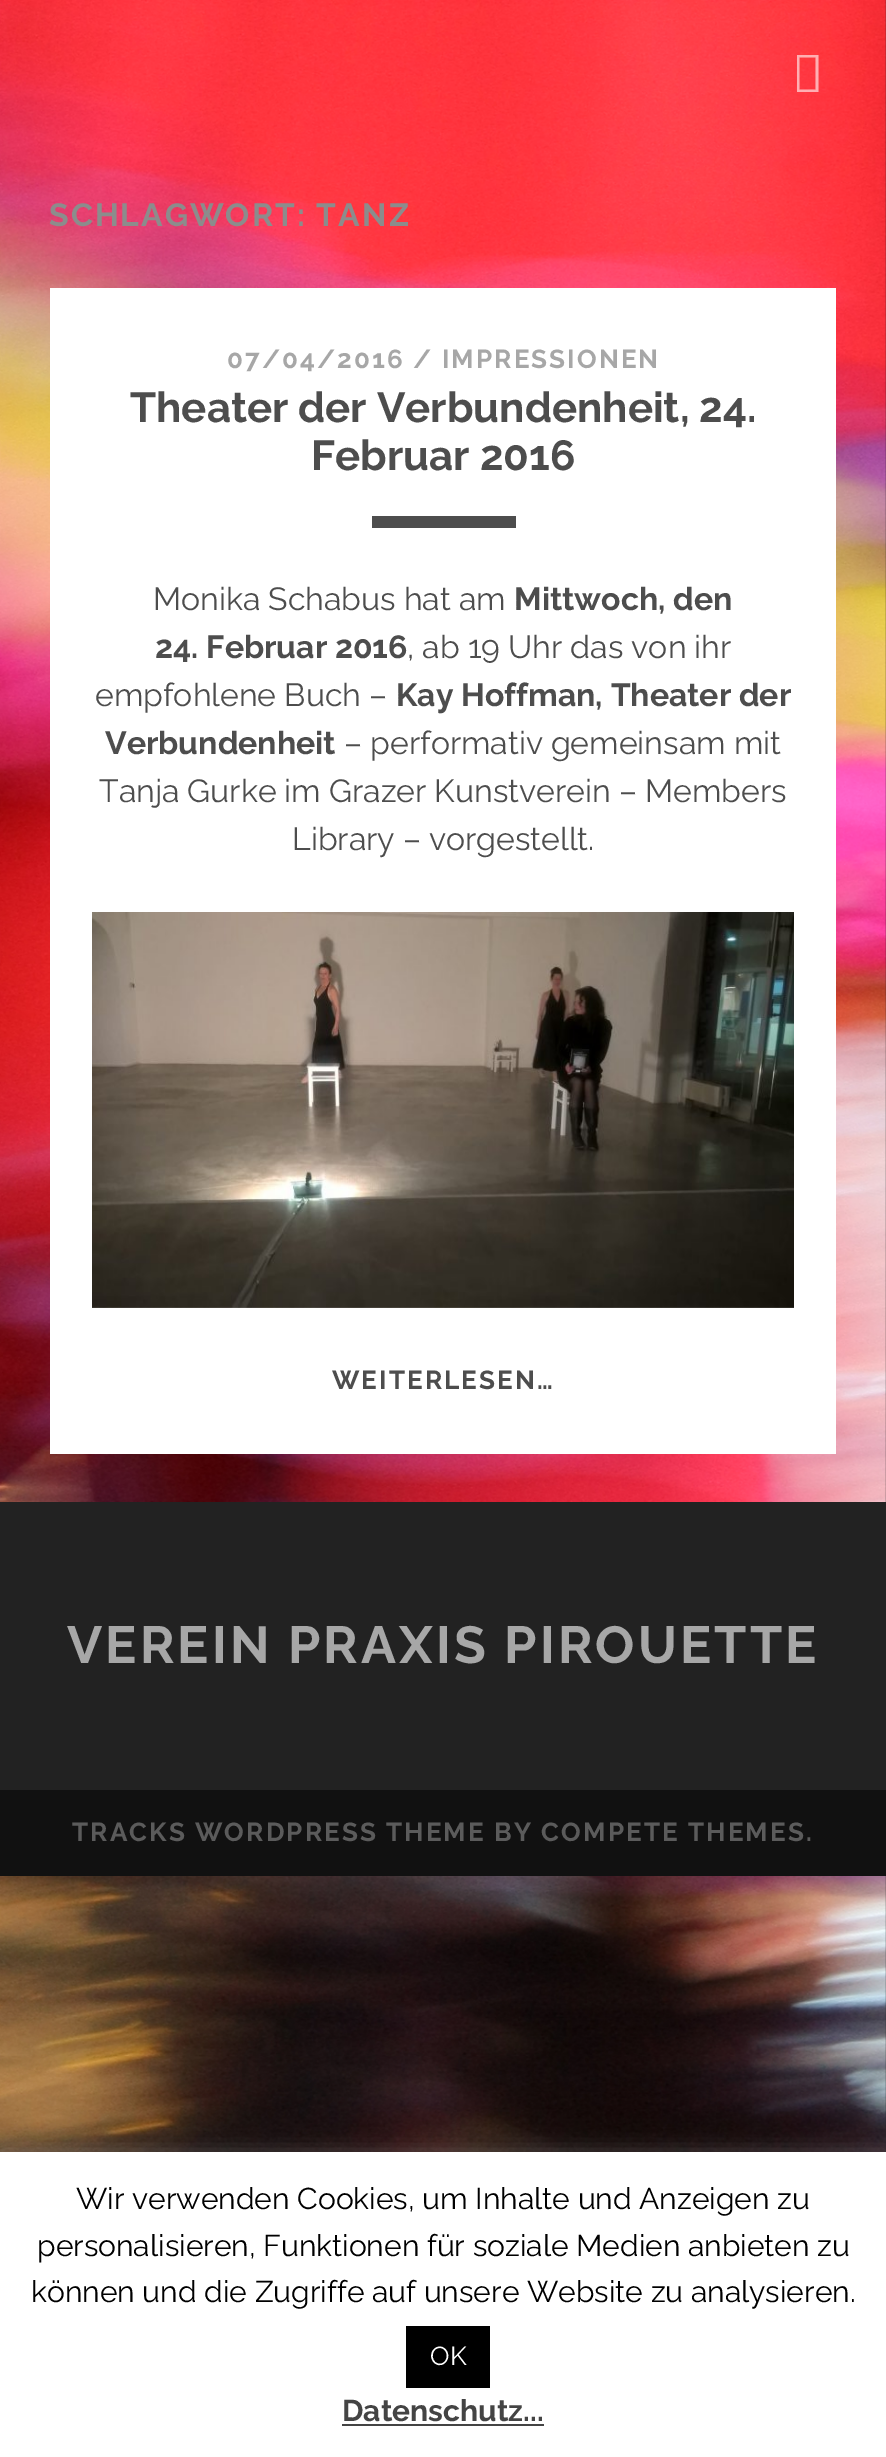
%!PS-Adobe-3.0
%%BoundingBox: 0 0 886 2457
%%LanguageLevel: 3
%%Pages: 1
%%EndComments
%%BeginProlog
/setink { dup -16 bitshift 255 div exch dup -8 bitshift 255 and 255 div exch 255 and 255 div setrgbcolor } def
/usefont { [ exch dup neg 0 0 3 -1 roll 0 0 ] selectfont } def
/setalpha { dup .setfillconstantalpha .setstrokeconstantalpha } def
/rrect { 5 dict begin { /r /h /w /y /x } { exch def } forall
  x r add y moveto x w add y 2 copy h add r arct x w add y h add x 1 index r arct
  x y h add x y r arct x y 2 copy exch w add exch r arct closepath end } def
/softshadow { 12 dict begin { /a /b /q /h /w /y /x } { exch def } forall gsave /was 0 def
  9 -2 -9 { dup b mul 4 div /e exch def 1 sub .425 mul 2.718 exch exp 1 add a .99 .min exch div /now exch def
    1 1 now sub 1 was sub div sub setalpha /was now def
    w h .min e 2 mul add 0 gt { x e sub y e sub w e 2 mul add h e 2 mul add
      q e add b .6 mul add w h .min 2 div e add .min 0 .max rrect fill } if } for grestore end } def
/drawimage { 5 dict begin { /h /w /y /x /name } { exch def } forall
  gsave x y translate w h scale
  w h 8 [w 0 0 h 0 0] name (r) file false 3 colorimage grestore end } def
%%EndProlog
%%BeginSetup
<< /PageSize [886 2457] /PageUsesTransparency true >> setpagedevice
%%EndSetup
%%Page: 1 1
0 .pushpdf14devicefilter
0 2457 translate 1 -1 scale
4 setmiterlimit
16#FFFFFF setink
0 0 886 2457 rectfill
(img1.raw) 0 0 886 2152 drawimage
0.6 setalpha
797 92 moveto 797 55 lineto 818.5 55 lineto 818.5 92 lineto closepath 799.5 89.5 moveto 815.5 89.5 lineto 815.5 57.5 lineto 799.5 57.5 lineto closepath fill
/Raleway-Bold 32 usefont
1 setalpha
16#8C8C8C setink
49 226 moveto 2 0 (SCHLAGWORT:) ashow
316 226 moveto 2.5 0 (TANZ) ashow
16#FFFFFF setink
50 288 786 1166 rectfill
/Raleway-Bold 26 usefont
16#A7A7A7 setink
227 368 moveto 2.1 0 (07/04/2016 / IMPRESSIONEN) ashow
/Raleway-Bold 42 usefont
16#4D4D4D setink
130 422 moveto (Theater der Verbundenheit, 24.) show
311 470 moveto (Februar 2016) show
372 516 144 12 rectfill
/Raleway-Regular 32 usefont
153 610 moveto (Monika Schabus hat am) show
/Raleway-Bold 32 usefont
514 610 moveto (Mittwoch, den) show
155 658 moveto (24. Februar 2016) show
/Raleway-Regular 32 usefont
407 658 moveto (, ab 19 Uhr das von ihr) show
95 706 moveto (empfohlene Buch –) show
/Raleway-Bold 32 usefont
396 706 moveto (Kay Hoffman, Theater der) show
105 754 moveto (Verbundenheit) show
/Raleway-Regular 32 usefont
[
    [(– performativ gemeinsam mit) 344 754]
    [(Tanja Gurke im Grazer Kunstverein – Members) 99 802]
    [(Library – vorgestellt.) 292 850]
] { aload pop moveto show } forall
(img2.raw) 92 912 702 396 drawimage
/Raleway-Bold 26 usefont
332 1389 moveto 2.1 0 (WEITERLESEN…) ashow
16#222222 setink
0 1502 886 288 rectfill
/Raleway-Bold 52 usefont
16#A7A7A7 setink
67 1663 moveto 3.1 0 (VEREIN PRAXIS PIROUETTE) ashow
16#111111 setink
0 1790 886 86 rectfill
/Raleway-Bold 26 usefont
16#5B5B5B setink
72 1841 moveto 2.1 0 (TRACKS WORDPRESS THEME BY COMPETE THEMES.) ashow
16#ACABAB setink
0 2150 886 306 0 10 0.3 softshadow
16#FFFFFF setink
0 2152 886 305 rectfill
/Raleway-Regular 30 usefont
16#000000 setink
[
    [(Wir verwenden Cookies, um Inhalte und Anzeigen zu) 76 2209]
    [(personalisieren, Funktionen für soziale Medien anbieten zu) 37 2256]
    [(können und die Zugriffe auf unsere Website zu analysieren.) 31 2302]
] { aload pop moveto show } forall
406 2326 84 62 rectfill
/Raleway-Regular 26 usefont
16#FFFFFF setink
430 2365 moveto (OK) show
/Raleway-Bold 30 usefont
16#444444 setink
342 2421 moveto (Datenschutz...) show
342 2424 202 2 rectfill
.poppdf14devicefilter showpage
%%EOF
